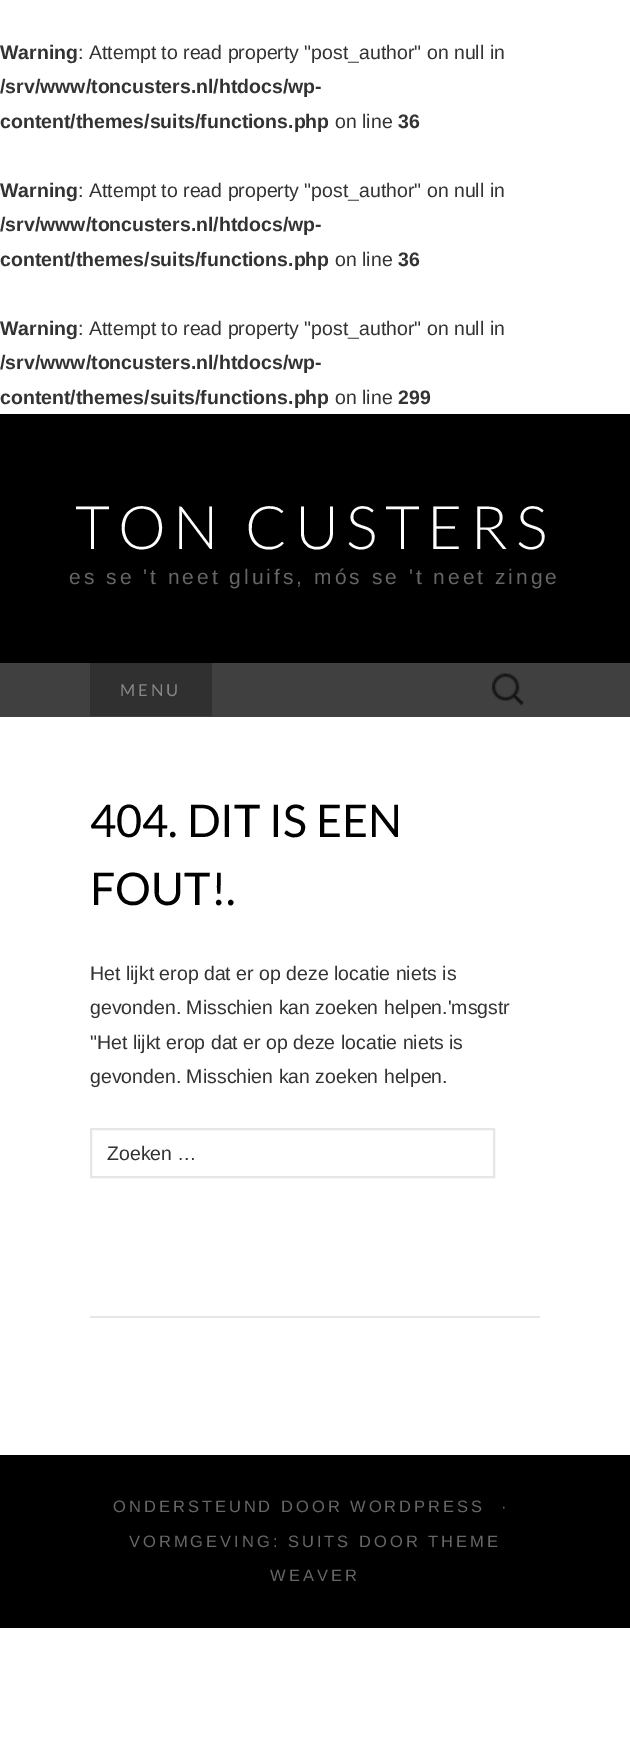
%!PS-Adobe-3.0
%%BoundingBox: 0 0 630 1742
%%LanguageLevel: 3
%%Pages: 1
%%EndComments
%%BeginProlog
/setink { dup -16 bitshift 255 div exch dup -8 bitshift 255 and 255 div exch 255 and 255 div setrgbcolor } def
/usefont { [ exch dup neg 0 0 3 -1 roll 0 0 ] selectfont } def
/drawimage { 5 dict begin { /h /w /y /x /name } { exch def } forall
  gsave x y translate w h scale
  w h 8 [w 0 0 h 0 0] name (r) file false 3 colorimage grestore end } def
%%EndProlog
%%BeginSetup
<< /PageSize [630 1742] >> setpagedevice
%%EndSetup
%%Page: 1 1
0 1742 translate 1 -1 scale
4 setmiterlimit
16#FFFFFF setink
0 0 630 1742 rectfill
/LiberationSans-Bold 19.5 usefont
16#333333 setink
0 59 moveto (Warning) show
/LiberationSans-Regular 19.5 usefont
78 59 moveto (: Attempt to read property "post_author" on null in) show
/LiberationSans-Bold 19.5 usefont
0 93 moveto (/srv/www/toncusters.nl/htdocs/wp-) show
0 128 moveto (content/themes/suits/functions.php) show
/LiberationSans-Regular 19.5 usefont
335 128 moveto (on line) show
/LiberationSans-Bold 19.5 usefont
398 128 moveto (36) show
0 197 moveto (Warning) show
/LiberationSans-Regular 19.5 usefont
78 197 moveto (: Attempt to read property "post_author" on null in) show
/LiberationSans-Bold 19.5 usefont
0 231 moveto (/srv/www/toncusters.nl/htdocs/wp-) show
0 266 moveto (content/themes/suits/functions.php) show
/LiberationSans-Regular 19.5 usefont
335 266 moveto (on line) show
/LiberationSans-Bold 19.5 usefont
398 266 moveto (36) show
0 335 moveto (Warning) show
/LiberationSans-Regular 19.5 usefont
78 335 moveto (: Attempt to read property "post_author" on null in) show
/LiberationSans-Bold 19.5 usefont
0 369 moveto (/srv/www/toncusters.nl/htdocs/wp-) show
0 404 moveto (content/themes/suits/functions.php) show
/LiberationSans-Regular 19.5 usefont
335 404 moveto (on line) show
/LiberationSans-Bold 19.5 usefont
398 404 moveto (299) show
16#000000 setink
0 414 630 249 rectfill
/Lato-Light 60 usefont
16#FFFFFF setink
75 549 moveto 7.5 0 (TON CUSTERS) ashow
/LiberationSans-Regular 21 usefont
16#666666 setink
69 584 moveto 3 0 (es se 't neet gluifs, mós se 't neet zinge) ashow
16#404040 setink
0 663 630 54 rectfill
16#303030 setink
90 663 122 53 rectfill
/Lato-Regular 16.5 usefont
16#888888 setink
120 696 moveto 3 0 (MENU) ashow
(img1.raw) 492 673 32 33 drawimage
16#E6E6E6 setink
90 1316 450 2 rectfill
/Lato-Regular 45 usefont
16#000000 setink
90 837 moveto (404. DIT IS EEN) show
90 905 moveto (FOUT!.) show
/LiberationSans-Regular 19.5 usefont
16#333333 setink
[
    [(Het lijkt erop dat er op deze locatie niets is) 90 980]
    [(gevonden. Misschien kan zoeken helpen.'msgstr) 90 1014]
    [("Het lijkt erop dat er op deze locatie niets is) 90 1049]
    [(gevonden. Misschien kan zoeken helpen.) 90 1083]
] { aload pop moveto show } forall
16#E6E6E6 setink
2 setlinewidth
91 1129 403 48 rectstroke
16#333333 setink
107 1160 moveto (Zoeken …) show
16#000000 setink
0 1455 630 173 rectfill
/LiberationSans-Regular 16.5 usefont
16#666666 setink
113 1512 moveto 3 0 (ONDERSTEUND DOOR WORDPRESS) ashow
501 1512 moveto 3 0 (·) ashow
129 1547 moveto 3 0 (VORMGEVING: SUITS DOOR THEME) ashow
270 1581 moveto 3 0 (WEAVER) ashow
showpage
%%EOF
